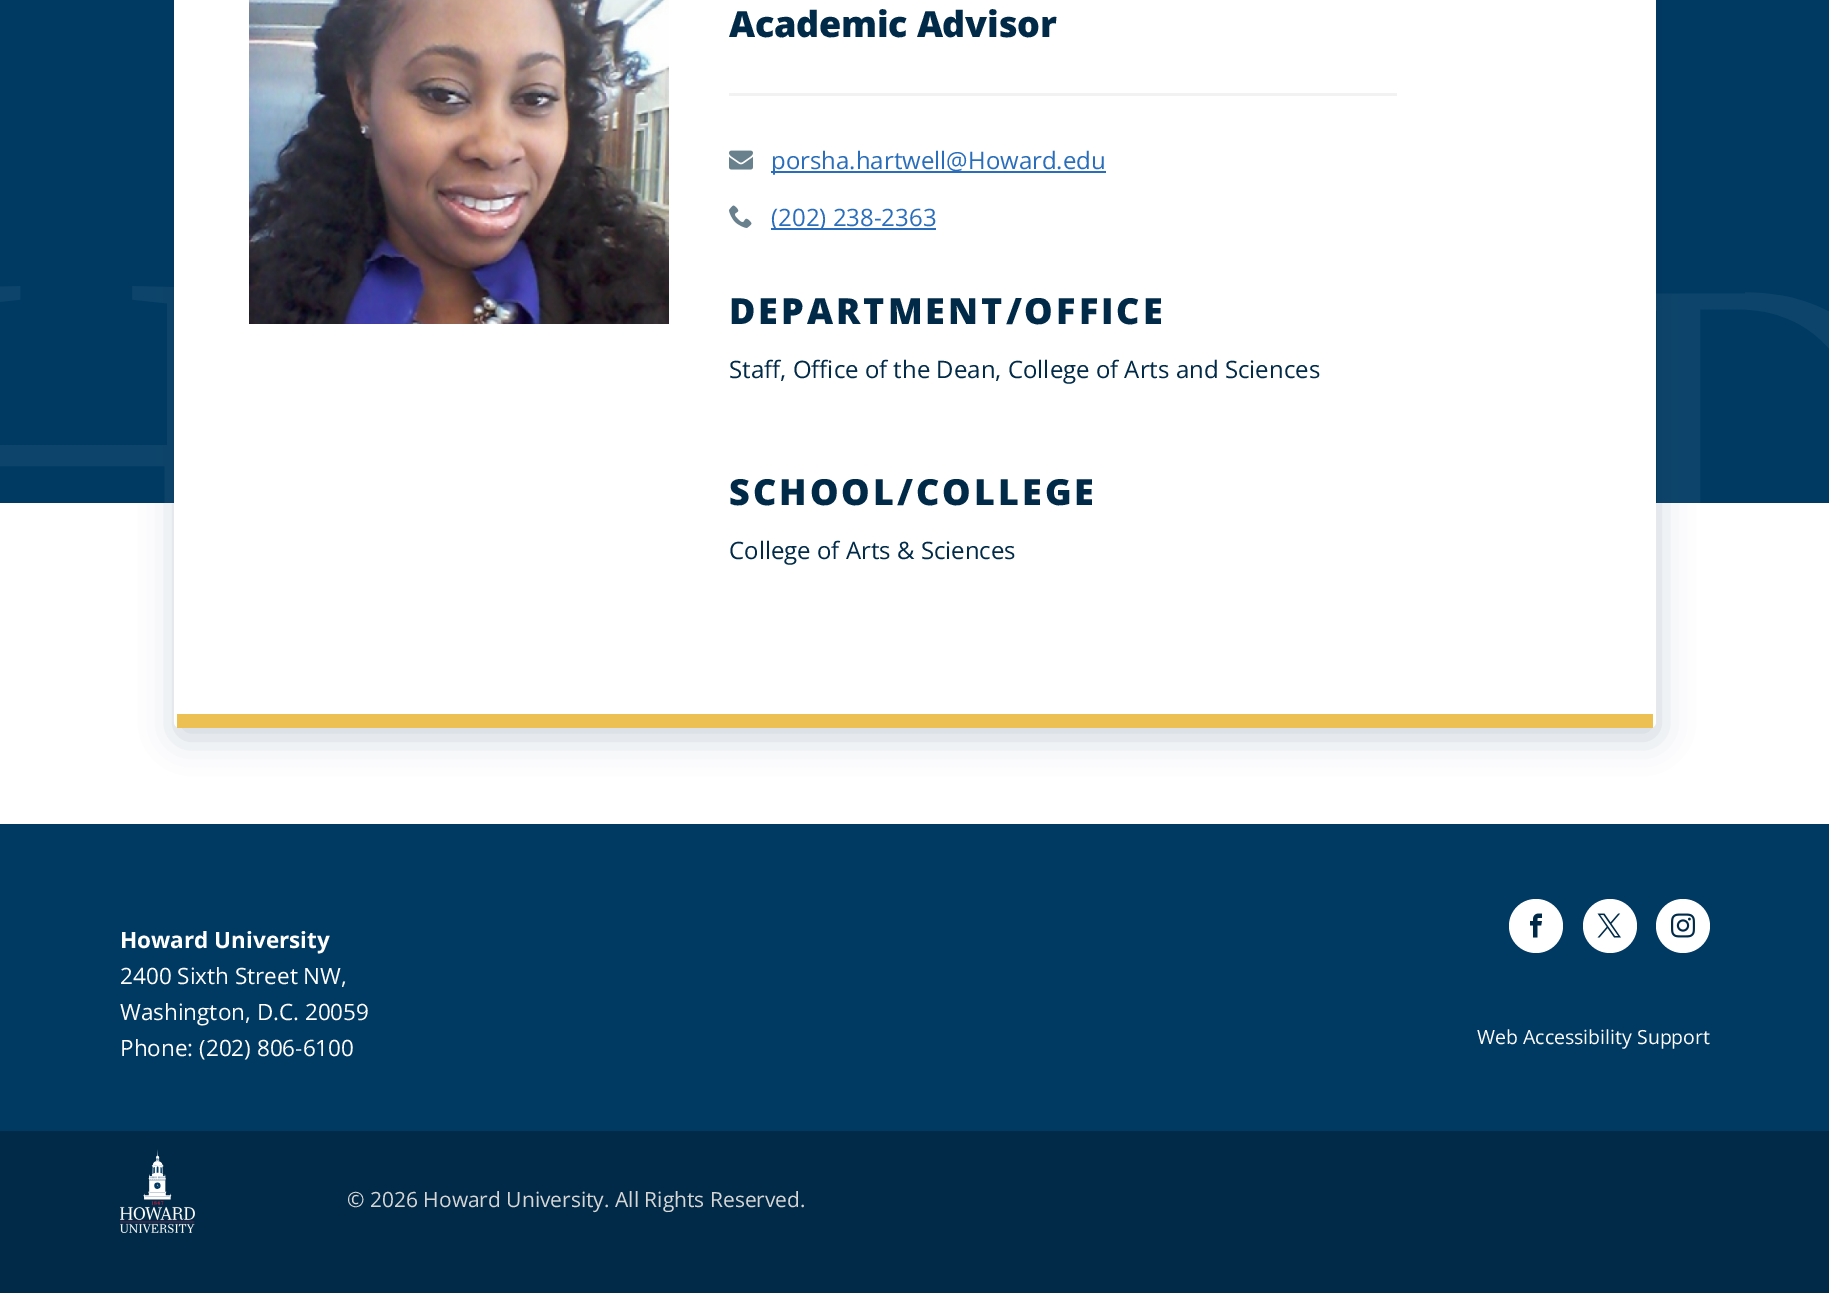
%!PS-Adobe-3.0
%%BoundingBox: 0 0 1829 1293
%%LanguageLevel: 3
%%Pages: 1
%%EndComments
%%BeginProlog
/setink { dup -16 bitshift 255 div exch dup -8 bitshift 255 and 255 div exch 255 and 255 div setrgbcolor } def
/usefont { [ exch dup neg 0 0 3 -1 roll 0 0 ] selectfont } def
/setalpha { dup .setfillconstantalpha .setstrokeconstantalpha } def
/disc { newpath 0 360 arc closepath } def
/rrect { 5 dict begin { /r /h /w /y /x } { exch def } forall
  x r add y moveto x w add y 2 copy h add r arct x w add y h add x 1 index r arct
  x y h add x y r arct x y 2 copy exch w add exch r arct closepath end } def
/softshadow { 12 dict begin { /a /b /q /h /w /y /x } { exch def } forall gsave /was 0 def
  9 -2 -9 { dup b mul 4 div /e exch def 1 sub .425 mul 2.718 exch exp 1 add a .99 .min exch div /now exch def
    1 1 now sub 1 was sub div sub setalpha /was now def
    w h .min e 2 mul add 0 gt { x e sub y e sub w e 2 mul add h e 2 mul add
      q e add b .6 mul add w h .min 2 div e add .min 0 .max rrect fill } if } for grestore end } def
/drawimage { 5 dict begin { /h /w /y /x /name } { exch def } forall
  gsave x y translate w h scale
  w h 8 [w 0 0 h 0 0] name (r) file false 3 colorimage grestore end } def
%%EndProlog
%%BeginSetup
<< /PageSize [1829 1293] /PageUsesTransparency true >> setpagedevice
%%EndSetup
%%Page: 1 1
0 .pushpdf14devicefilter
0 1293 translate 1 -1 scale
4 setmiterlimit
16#FFFFFF setink
0 0 1829 1293 rectfill
16#003A63 setink
0 0 1829 503 rectfill
(img1.raw) 0 286 1829 217 drawimage
16#002A47 setink
176 -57 1482 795 6 17 0.2 softshadow
16#FFFFFF setink
174 -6 1482 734 6 rrect fill
16#EDC054 setink
177 714 1476 14 rectfill
(img2.raw) 249 0 420 324 drawimage
/OpenSans-ExtraBold 36 usefont
16#002A47 setink
729 37 moveto -0.25 0 (Academic Advisor) ashow
16#F2F2F2 setink
729 93 668 3 rectfill
(img3.raw) 729 150 24 20 drawimage
16#2A6EBB setink
771 171 335 2 rectfill
/OpenSans-Regular 24 usefont
771 169 moveto (porsha.hartwell@Howard.edu) show
(img4.raw) 729 205 23 23 drawimage
771 228 165 2 rectfill
771 226 moveto (\(202\) 238-2363) show
/OpenSans-ExtraBold 36 usefont
16#002A47 setink
729 324 moveto 3 0 (DEPARTMENT/OFFICE) ashow
/OpenSans-Regular 24 usefont
729 378 moveto (Staff, Office of the Dean, College of Arts and Sciences) show
/OpenSans-ExtraBold 36 usefont
729 505 moveto 3 0 (SCHOOL/COLLEGE) ashow
/OpenSans-Regular 24 usefont
729 559 moveto (College of Arts & Sciences) show
16#003A63 setink
0 824 1829 307 rectfill
/OpenSans-Bold 22.5 usefont
16#FFFFFF setink
120 948 moveto (Howard University) show
/OpenSans-Regular 22.5 usefont
[
    [(2400 Sixth Street NW,) 120 984]
    [(Washington, D.C. 20059) 120 1020]
    [(Phone: \(202\) 806-6100) 120 1056]
] { aload pop moveto show } forall
1536 926 27 disc fill
(img5.raw) 1530 913 12 25 drawimage
1610 926 27 disc fill
(img6.raw) 1597 913 24 25 drawimage
1683 926 27 disc fill
(img7.raw) 1671 913 24 25 drawimage
/OpenSans-Regular 19.5 usefont
1477 1044 moveto (Web Accessibility Support) show
16#002A47 setink
0 1131 1829 162 rectfill
(img8.raw) 120 1149 75 84 drawimage
/OpenSans-Regular 21 usefont
16#D6D6D6 setink
347 1207 moveto (© 2026 Howard University. All Rights Reserved.) show
.poppdf14devicefilter showpage
%%EOF
